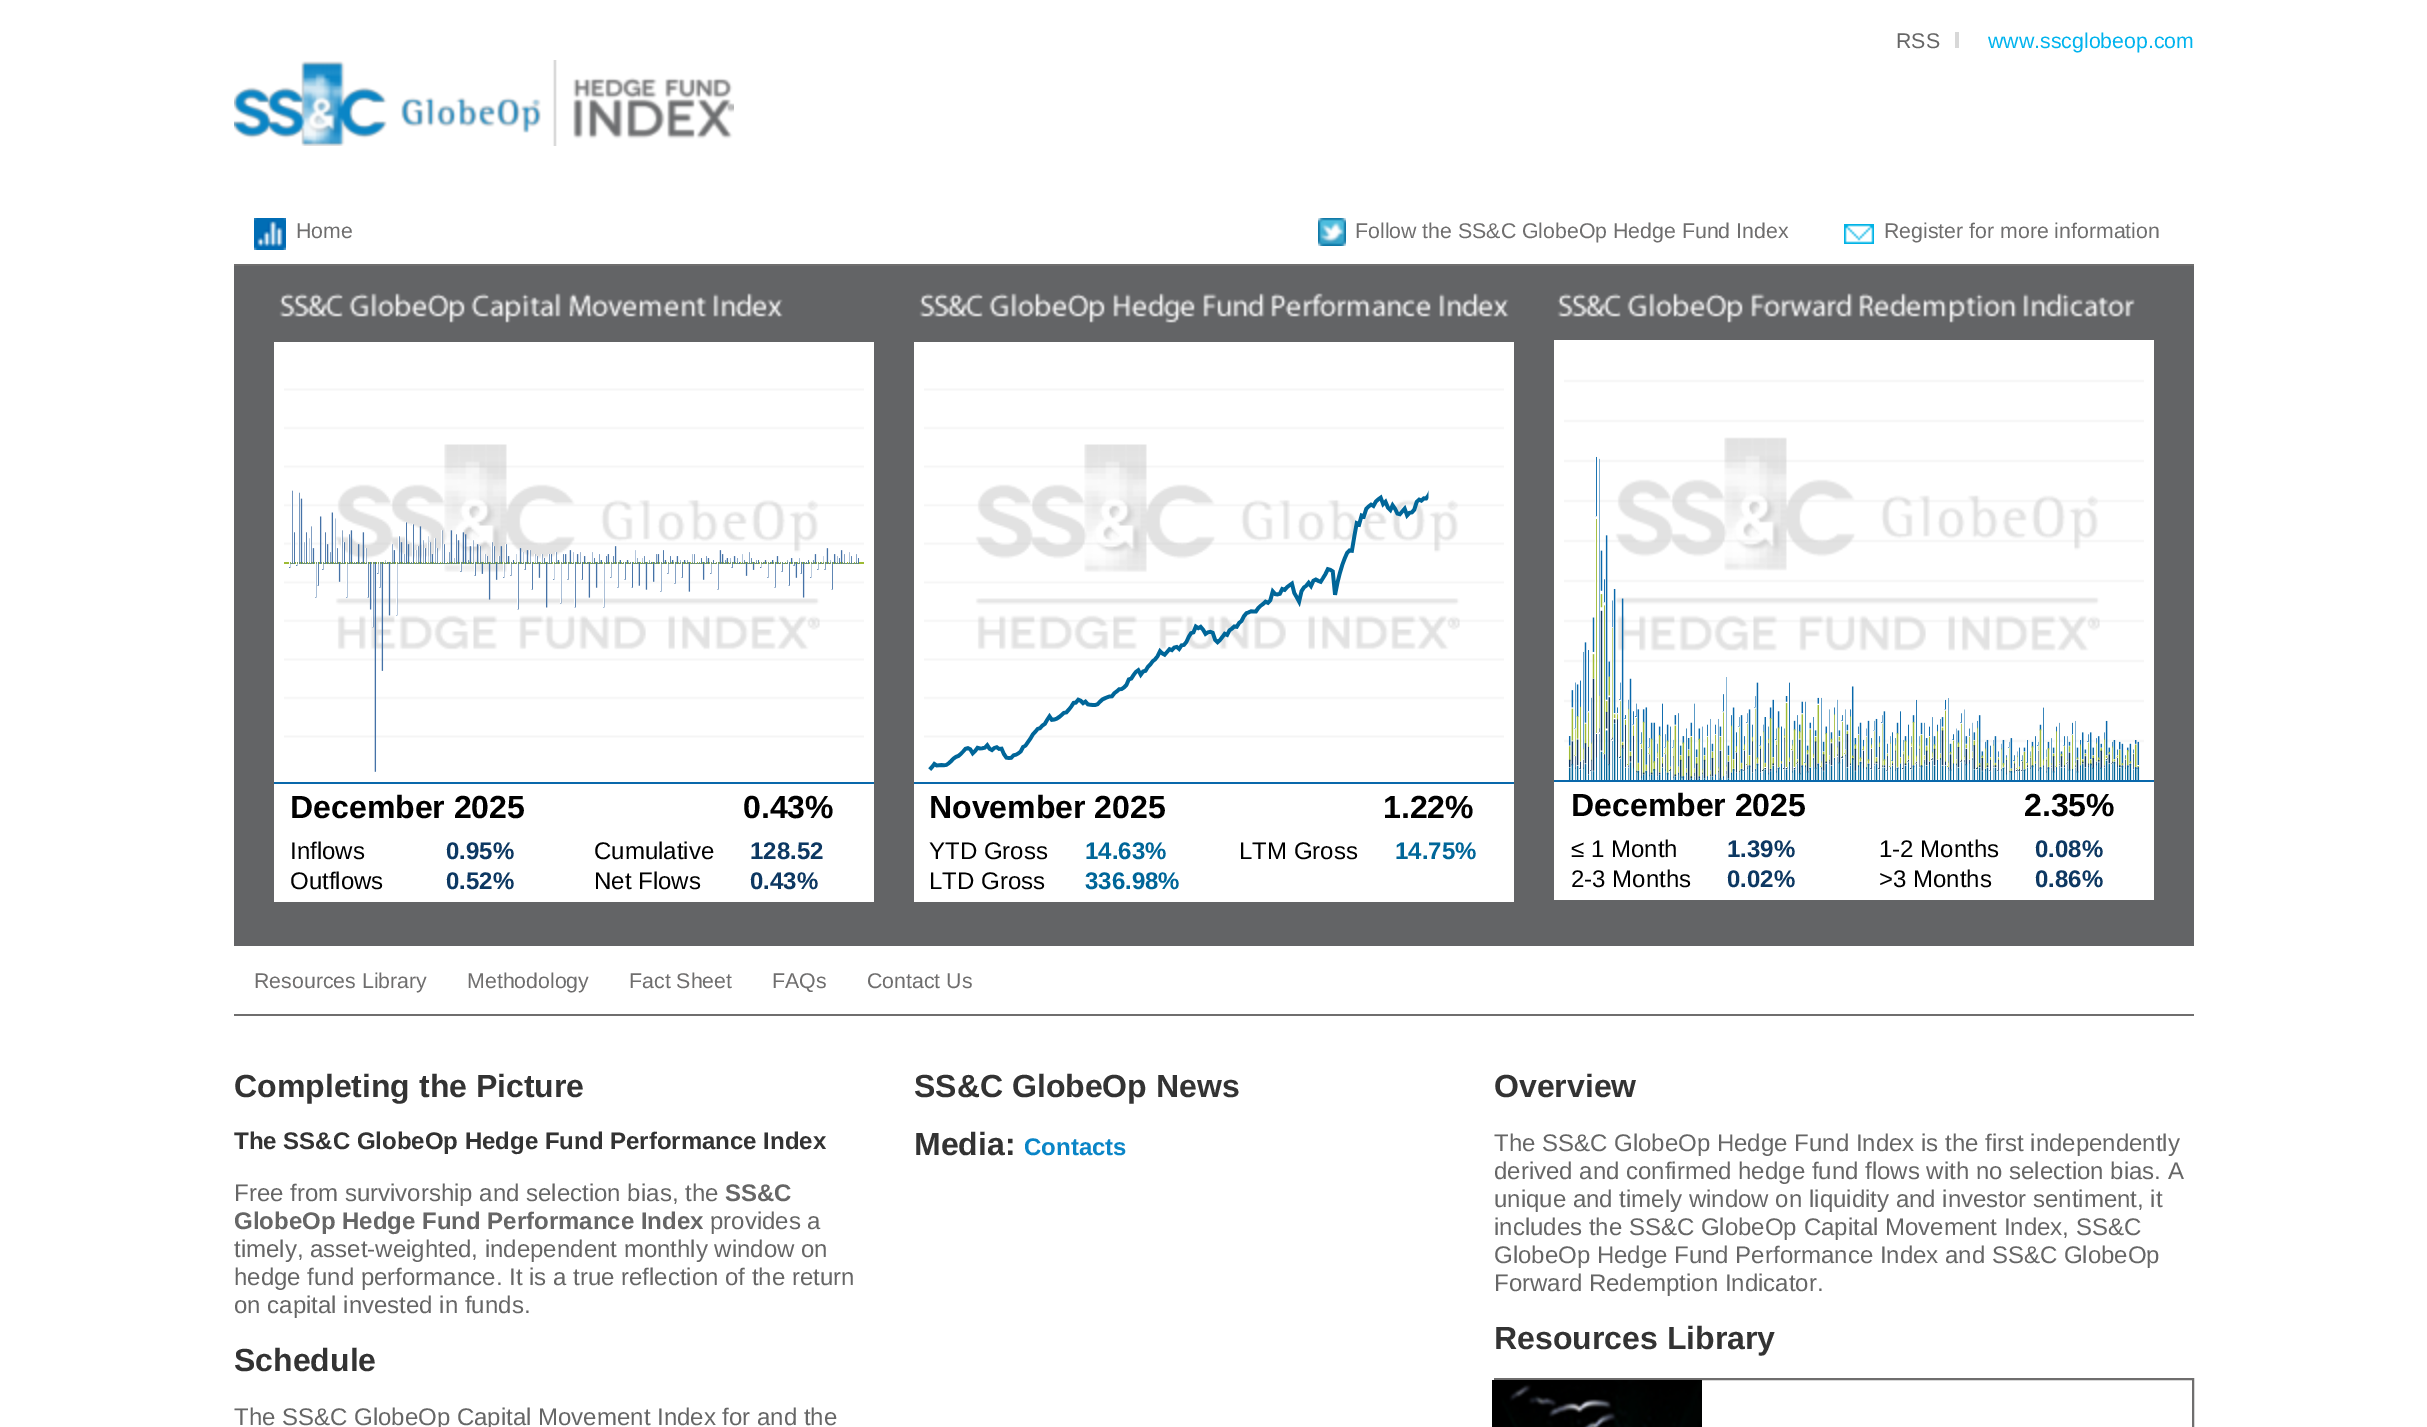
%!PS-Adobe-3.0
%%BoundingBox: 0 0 2427 1427
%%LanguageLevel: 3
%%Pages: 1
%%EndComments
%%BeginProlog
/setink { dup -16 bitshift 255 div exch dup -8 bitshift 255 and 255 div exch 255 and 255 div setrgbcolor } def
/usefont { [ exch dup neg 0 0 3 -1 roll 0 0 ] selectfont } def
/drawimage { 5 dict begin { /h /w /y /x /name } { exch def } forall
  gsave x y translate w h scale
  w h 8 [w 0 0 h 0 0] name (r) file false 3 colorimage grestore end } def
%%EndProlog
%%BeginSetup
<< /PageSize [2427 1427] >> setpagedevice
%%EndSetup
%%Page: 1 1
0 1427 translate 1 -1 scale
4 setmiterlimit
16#FFFFFF setink
0 0 2427 1427 rectfill
/LiberationSans-Regular 21.3 usefont
16#666666 setink
1896 48 moveto (RSS) show
16#D8D8D8 setink
1955 32 4 16 rectfill
16#00B3EE setink
1988 48 moveto (www.sscglobeop.com) show
(img1.raw) 234 60 500 86 drawimage
16#6F6E6E setink
234 264 1960 2 rectfill
(img2.raw) 254 218 32 32 drawimage
296 238 moveto (Home) show
(img3.raw) 1318 218 28 28 drawimage
1355 238 moveto (Follow the SS&C GlobeOp Hedge Fund Index) show
(img4.raw) 1844 224 30 20 drawimage
1884 238 moveto (Register for more information) show
16#636466 setink
234 266 1960 680 rectfill
(img5.raw) 279 293 504 30 drawimage
(img6.raw) 274 342 600 440 drawimage
16#FFFFFF setink
274 784 600 118 rectfill
16#0968AB setink
274 782 600 2 rectfill
/LiberationSans-Bold 32 usefont
16#000000 setink
290 818 moveto (December 2025) show
743 818 moveto (0.43%) show
/LiberationSans-Regular 24 usefont
290 859 moveto (Inflows) show
/LiberationSans-Bold 24 usefont
16#0D3862 setink
446 859 moveto (0.95%) show
/LiberationSans-Regular 24 usefont
16#000000 setink
594 859 moveto (Cumulative) show
/LiberationSans-Bold 24 usefont
16#0D3862 setink
750 859 moveto (128.52) show
/LiberationSans-Regular 24 usefont
16#000000 setink
290 889 moveto (Outflows) show
/LiberationSans-Bold 24 usefont
16#0D3862 setink
446 889 moveto (0.52%) show
/LiberationSans-Regular 24 usefont
16#000000 setink
594 889 moveto (Net Flows) show
/LiberationSans-Bold 24 usefont
16#0D3862 setink
750 889 moveto (0.43%) show
(img7.raw) 919 293 590 30 drawimage
(img8.raw) 914 342 600 440 drawimage
16#FFFFFF setink
914 784 600 118 rectfill
16#0968AB setink
914 782 600 2 rectfill
/LiberationSans-Bold 32 usefont
16#000000 setink
929 818 moveto (November 2025) show
1383 818 moveto (1.22%) show
/LiberationSans-Regular 24 usefont
929 859 moveto (YTD Gross) show
/LiberationSans-Bold 24 usefont
16#006699 setink
1085 859 moveto (14.63%) show
/LiberationSans-Regular 24 usefont
16#000000 setink
1239 859 moveto (LTM Gross) show
/LiberationSans-Bold 24 usefont
16#006699 setink
1395 859 moveto (14.75%) show
/LiberationSans-Regular 24 usefont
16#000000 setink
929 889 moveto (LTD Gross) show
/LiberationSans-Bold 24 usefont
16#006699 setink
1085 889 moveto (336.98%) show
(img9.raw) 1557 293 578 30 drawimage
(img10.raw) 1554 340 600 440 drawimage
16#FFFFFF setink
1554 782 600 118 rectfill
16#0968AB setink
1554 780 600 2 rectfill
/LiberationSans-Bold 32 usefont
16#000000 setink
1571 816 moveto (December 2025) show
2024 816 moveto (2.35%) show
/LiberationSans-Regular 24 usefont
1571 857 moveto (≤ 1 Month) show
/LiberationSans-Bold 24 usefont
16#0D3862 setink
1727 857 moveto (1.39%) show
/LiberationSans-Regular 24 usefont
16#000000 setink
1879 857 moveto (1-2 Months) show
/LiberationSans-Bold 24 usefont
16#0D3862 setink
2035 857 moveto (0.08%) show
/LiberationSans-Regular 24 usefont
16#000000 setink
1571 887 moveto (2-3 Months) show
/LiberationSans-Bold 24 usefont
16#0D3862 setink
1727 887 moveto (0.02%) show
/LiberationSans-Regular 24 usefont
16#000000 setink
1879 887 moveto (>3 Months) show
/LiberationSans-Bold 24 usefont
16#0D3862 setink
2035 887 moveto (0.86%) show
16#6F6E6E setink
234 1014 1960 2 rectfill
/LiberationSans-Regular 21.3 usefont
[
    [(Resources Library) 254 988]
    [(Methodology) 467 988]
    [(Fact Sheet) 629 988]
    [(FAQs) 772 988]
    [(Contact Us) 867 988]
] { aload pop moveto show } forall
/LiberationSans-Bold 32 usefont
16#333333 setink
234 1097 moveto (Completing the Picture) show
/LiberationSans-Bold 24 usefont
234 1149 moveto (The SS&C GlobeOp Hedge Fund Performance Index) show
/LiberationSans-Regular 24 usefont
16#666666 setink
234 1201 moveto (Free from survivorship and selection bias, the) show
/LiberationSans-Bold 24 usefont
725 1201 moveto (SS&C) show
234 1229 moveto (GlobeOp Hedge Fund Performance Index) show
/LiberationSans-Regular 24 usefont
[
    [(provides a) 710 1229]
    [(timely, asset-weighted, independent monthly window on) 234 1257]
    [(hedge fund performance. It is a true reflection of the return) 234 1285]
    [(on capital invested in funds.) 234 1313]
] { aload pop moveto show } forall
/LiberationSans-Bold 32 usefont
16#333333 setink
234 1371 moveto (Schedule) show
/LiberationSans-Regular 24 usefont
16#666666 setink
234 1425 moveto (The SS&C GlobeOp Capital Movement Index for and the) show
/LiberationSans-Bold 32 usefont
16#333333 setink
914 1097 moveto (SS&C GlobeOp News) show
914 1155 moveto (Media:) show
/LiberationSans-Bold 24 usefont
16#0A85C7 setink
1024 1155 moveto (Contacts) show
/LiberationSans-Bold 32 usefont
16#333333 setink
1494 1097 moveto (Overview) show
/LiberationSans-Regular 24 usefont
16#666666 setink
[
    [(The SS&C GlobeOp Hedge Fund Index is the first independently) 1494 1151]
    [(derived and confirmed hedge fund flows with no selection bias. A) 1494 1179]
    [(unique and timely window on liquidity and investor sentiment, it) 1494 1207]
    [(includes the SS&C GlobeOp Capital Movement Index, SS&C) 1494 1235]
    [(GlobeOp Hedge Fund Performance Index and SS&C GlobeOp) 1494 1263]
    [(Forward Redemption Indicator.) 1494 1291]
] { aload pop moveto show } forall
/LiberationSans-Bold 32 usefont
16#333333 setink
1494 1349 moveto (Resources Library) show
16#6F6E6E setink
2 setlinewidth
1495 1379 698 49 rectstroke
(img11.raw) 1492 1380 210 47 drawimage
showpage
%%EOF
